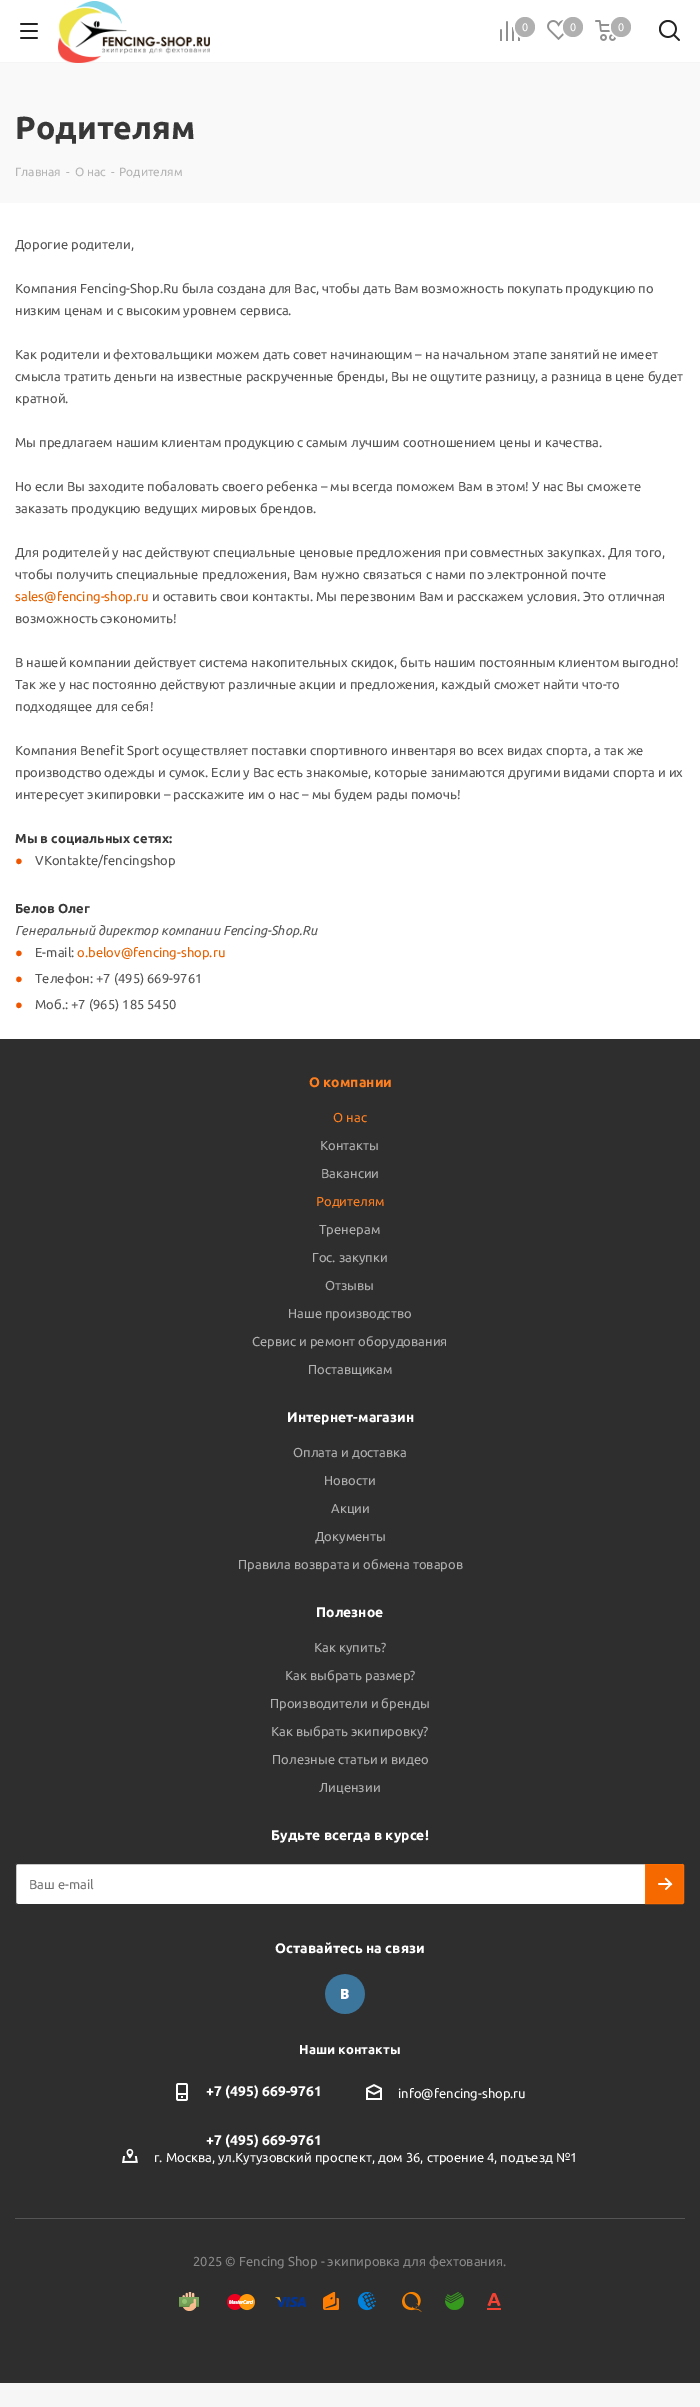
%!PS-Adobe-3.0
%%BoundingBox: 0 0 700 2407
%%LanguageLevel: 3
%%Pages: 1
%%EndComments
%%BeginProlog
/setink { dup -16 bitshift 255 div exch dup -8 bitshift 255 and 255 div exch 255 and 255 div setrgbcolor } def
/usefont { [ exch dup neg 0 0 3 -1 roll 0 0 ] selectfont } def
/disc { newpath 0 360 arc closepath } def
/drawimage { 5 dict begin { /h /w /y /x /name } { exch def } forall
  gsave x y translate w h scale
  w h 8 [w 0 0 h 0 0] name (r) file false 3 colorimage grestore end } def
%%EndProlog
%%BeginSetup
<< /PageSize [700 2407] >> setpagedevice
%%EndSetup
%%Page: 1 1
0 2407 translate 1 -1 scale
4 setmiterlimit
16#FFFFFF setink
0 0 700 2407 rectfill
16#F5F5F5 setink
0 62 700 1 rectfill
(img1.raw) 20 23 18 16 drawimage
(img2.raw) 58 1 152 62 drawimage
(img3.raw) 500 21 20 20 drawimage
16#FFFFFF setink
2 setlinewidth
525 27 11 disc stroke
16#B0B0B0 setink
525 27 10 disc fill
/Ubuntu-Regular 11 usefont
16#FFFFFF setink
522 31 moveto (0) show
(img4.raw) 547 20 19 20 drawimage
573 27 11 disc stroke
16#B0B0B0 setink
573 27 10 disc fill
16#FFFFFF setink
570 31 moveto (0) show
(img5.raw) 595 20 21 21 drawimage
621 27 11 disc stroke
16#B0B0B0 setink
621 27 10 disc fill
16#FFFFFF setink
618 31 moveto (0) show
(img6.raw) 659 20 21 21 drawimage
16#F9F9F9 setink
0 63 700 140 rectfill
/Ubuntu-Bold 32 usefont
16#383838 setink
15 139 moveto (Родителям) show
/Ubuntu-Regular 12 usefont
16#B6B5B5 setink
[
    [(Главная) 15 176]
    [(-) 66 176]
    [(О нас) 75 176]
    [(-) 111 176]
    [(Родителям) 119 176]
] { aload pop moveto show } forall
/Ubuntu-Regular 13 usefont
16#555555 setink
[
    [(Дорогие родители,) 15 249]
    [(Компания Fencing-Shop.Ru была создана для Вас, чтобы дать Вам возможность покупать продукцию по) 15 293]
    [(низким ценам и с высоким уровнем сервиса.) 15 315]
    [(Как родители и фехтовальщики можем дать совет начинающим – на начальном этапе занятий не имеет) 15 359]
    [(смысла тратить деньги на известные раскрученные бренды, Вы не ощутите разницу, а разница в цене будет) 15 381]
    [(кратной.) 15 403]
    [(Мы предлагаем нашим клиентам продукцию с самым лучшим соотношением цены и качества.) 15 447]
    [(Но если Вы заходите побаловать своего ребенка – мы всегда поможем Вам в этом! У нас Вы сможете) 15 491]
    [(заказать продукцию ведущих мировых брендов.) 15 513]
    [(Для родителей у нас действуют специальные ценовые предложения при совместных закупках. Для того,) 15 557]
    [(чтобы получить специальные предложения, Вам нужно связаться с нами по электронной почте) 15 579]
] { aload pop moveto show } forall
16#E66200 setink
15 601 moveto (sales@fencing-shop.ru) show
16#555555 setink
[
    [(и оставить свои контакты. Мы перезвоним Вам и расскажем условия. Это отличная) 152 601]
    [(возможность сэкономить!) 15 623]
    [(В нашей компании действует система накопительных скидок, быть нашим постоянным клиентом выгодно!) 15 667]
    [(Так же у нас постоянно действуют различные акции и предложения, каждый сможет найти что-то) 15 689]
    [(подходящее для себя!) 15 711]
    [(Компания Benefit Sport осуществляет поставки спортивного инвентаря во всех видах спорта, а так же) 15 755]
    [(производство одежды и сумок. Если у Вас есть знакомые, которые занимаются другими видами спорта и их) 15 777]
    [(интересует экипировки – расскажите им о нас – мы будем рады помочь!) 15 799]
] { aload pop moveto show } forall
/Ubuntu-Bold 13 usefont
16#383838 setink
15 843 moveto (Мы в социальных сетях:) show
/LiberationSans-Regular 13 usefont
16#F05600 setink
15 865 moveto (●) show
/Ubuntu-Regular 13 usefont
16#555555 setink
35 865 moveto (VKontakte/fencingshop) show
/Ubuntu-Bold 13 usefont
16#383838 setink
15 913 moveto (Белов Олег) show
/Ubuntu-Italic 13 usefont
16#555555 setink
15 935 moveto (Генеральный директор компании Fencing-Shop.Ru) show
/LiberationSans-Regular 13 usefont
16#F05600 setink
15 957 moveto (●) show
/Ubuntu-Regular 13 usefont
16#555555 setink
35 957 moveto (E-mail:) show
16#E66200 setink
77 957 moveto (o.belov@fencing-shop.ru) show
/LiberationSans-Regular 13 usefont
16#F05600 setink
15 983 moveto (●) show
/Ubuntu-Regular 13 usefont
16#555555 setink
35 983 moveto (Телефон: +7 \(495\) 669-9761) show
/LiberationSans-Regular 13 usefont
16#F05600 setink
15 1009 moveto (●) show
/Ubuntu-Regular 13 usefont
16#555555 setink
35 1009 moveto (Моб.: +7 \(965\) 185 5450) show
16#F6F6F7 setink
0 2383 700 24 rectfill
16#2E2E2F setink
0 1039 700 1344 rectfill
/Ubuntu-Bold 13.9 usefont
16#FF7F1F setink
309 1087 moveto (О компании) show
/Ubuntu-Regular 13 usefont
333 1122 moveto (О нас) show
16#B0B0B0 setink
320 1150 moveto (Контакты) show
321 1178 moveto (Вакансии) show
16#FF7F1F setink
316 1206 moveto (Родителям) show
16#B0B0B0 setink
[
    [(Тренерам) 319 1234]
    [(Гос. закупки) 312 1262]
    [(Отзывы) 325 1290]
    [(Наше производство) 288 1318]
    [(Сервис и ремонт оборудования) 252 1346]
    [(Поставщикам) 308 1374]
] { aload pop moveto show } forall
/Ubuntu-Bold 13.9 usefont
16#FFFFFF setink
287 1422 moveto (Интернет-магазин) show
/Ubuntu-Regular 13 usefont
16#B0B0B0 setink
[
    [(Оплата и доставка) 293 1457]
    [(Новости) 324 1485]
    [(Акции) 331 1513]
    [(Документы) 315 1541]
    [(Правила возврата и обмена товаров) 238 1569]
] { aload pop moveto show } forall
/Ubuntu-Bold 13.9 usefont
16#FFFFFF setink
316 1617 moveto (Полезное) show
/Ubuntu-Regular 13 usefont
16#B0B0B0 setink
[
    [(Как купить?) 314 1652]
    [(Как выбрать размер?) 285 1680]
    [(Производители и бренды) 270 1708]
    [(Как выбрать экипировку?) 271 1736]
    [(Полезные статьи и видео) 272 1764]
    [(Лицензии) 319 1792]
] { aload pop moveto show } forall
/Ubuntu-Bold 13.9 usefont
16#FFFFFF setink
271 1840 moveto (Будьте всегда в курсе!) show
18 1863.5 moveto 681 1863.5 lineto 683 1863.5 684.5 1865 684.5 1867 curveto 684.5 1901 lineto 684.5 1903 683 1904.5 681 1904.5 curveto 18 1904.5 lineto 16.5 1904.5 15.5 1903.5 15.5 1902 curveto 15.5 1866 lineto 15.5 1864.5 16.5 1863.5 18 1863.5 curveto closepath gsave fill grestore
16#2E2E2F setink
1 setlinewidth
stroke
/Ubuntu-Regular 13 usefont
16#757575 setink
29 1889 moveto (Ваш e-mail) show
16#F56900 setink
645 1864 moveto 682 1864 lineto 683 1864 684 1865 684 1866 curveto 684 1902 lineto 684 1903 683 1904 682 1904 curveto 645 1904 lineto closepath fill
(img7.raw) 658 1877 15 13 drawimage
16#FF6D00 setink
645.5 1864.5 moveto 682 1864.5 lineto 683 1864.5 683.5 1865 683.5 1866 curveto 683.5 1902 lineto 683.5 1903 683 1903.5 682 1903.5 curveto 645.5 1903.5 lineto closepath stroke
/Ubuntu-Bold 13.9 usefont
16#FFFFFF setink
275 1953 moveto (Оставайтесь на связи) show
(img8.raw) 325 1974 40 40 drawimage
/Ubuntu-Bold 13 usefont
299 2054 moveto (Наши контакты) show
(img9.raw) 176 2083 12 18 drawimage
/Ubuntu-Bold 13.9 usefont
206 2096 moveto (+7 \(495\) 669-9761) show
206 2145 moveto (+7 \(495\) 669-9761) show
(img10.raw) 366 2084 16 16 drawimage
/Ubuntu-Regular 13 usefont
398 2098 moveto (info@fencing-shop.ru) show
(img11.raw) 122 2148 16 15 drawimage
154 2162 moveto (г. Москва, ул.Кутузовский проспект, дом 36, строение 4, подъезд №1) show
16#555555 setink
15 2218 670 1 rectfill
16#888888 setink
193 2266 moveto (2025 © Fencing Shop - экипировка для фехтования.) show
(img12.raw) 179 2292 20 19 drawimage
(img13.raw) 227 2294 28 17 drawimage
(img14.raw) 275 2296 31 11 drawimage
(img15.raw) 323 2292 16 18 drawimage
(img16.raw) 358 2292 18 19 drawimage
(img17.raw) 402 2292 20 20 drawimage
(img18.raw) 445 2292 19 18 drawimage
(img19.raw) 487 2293 14 17 drawimage
showpage
%%EOF
